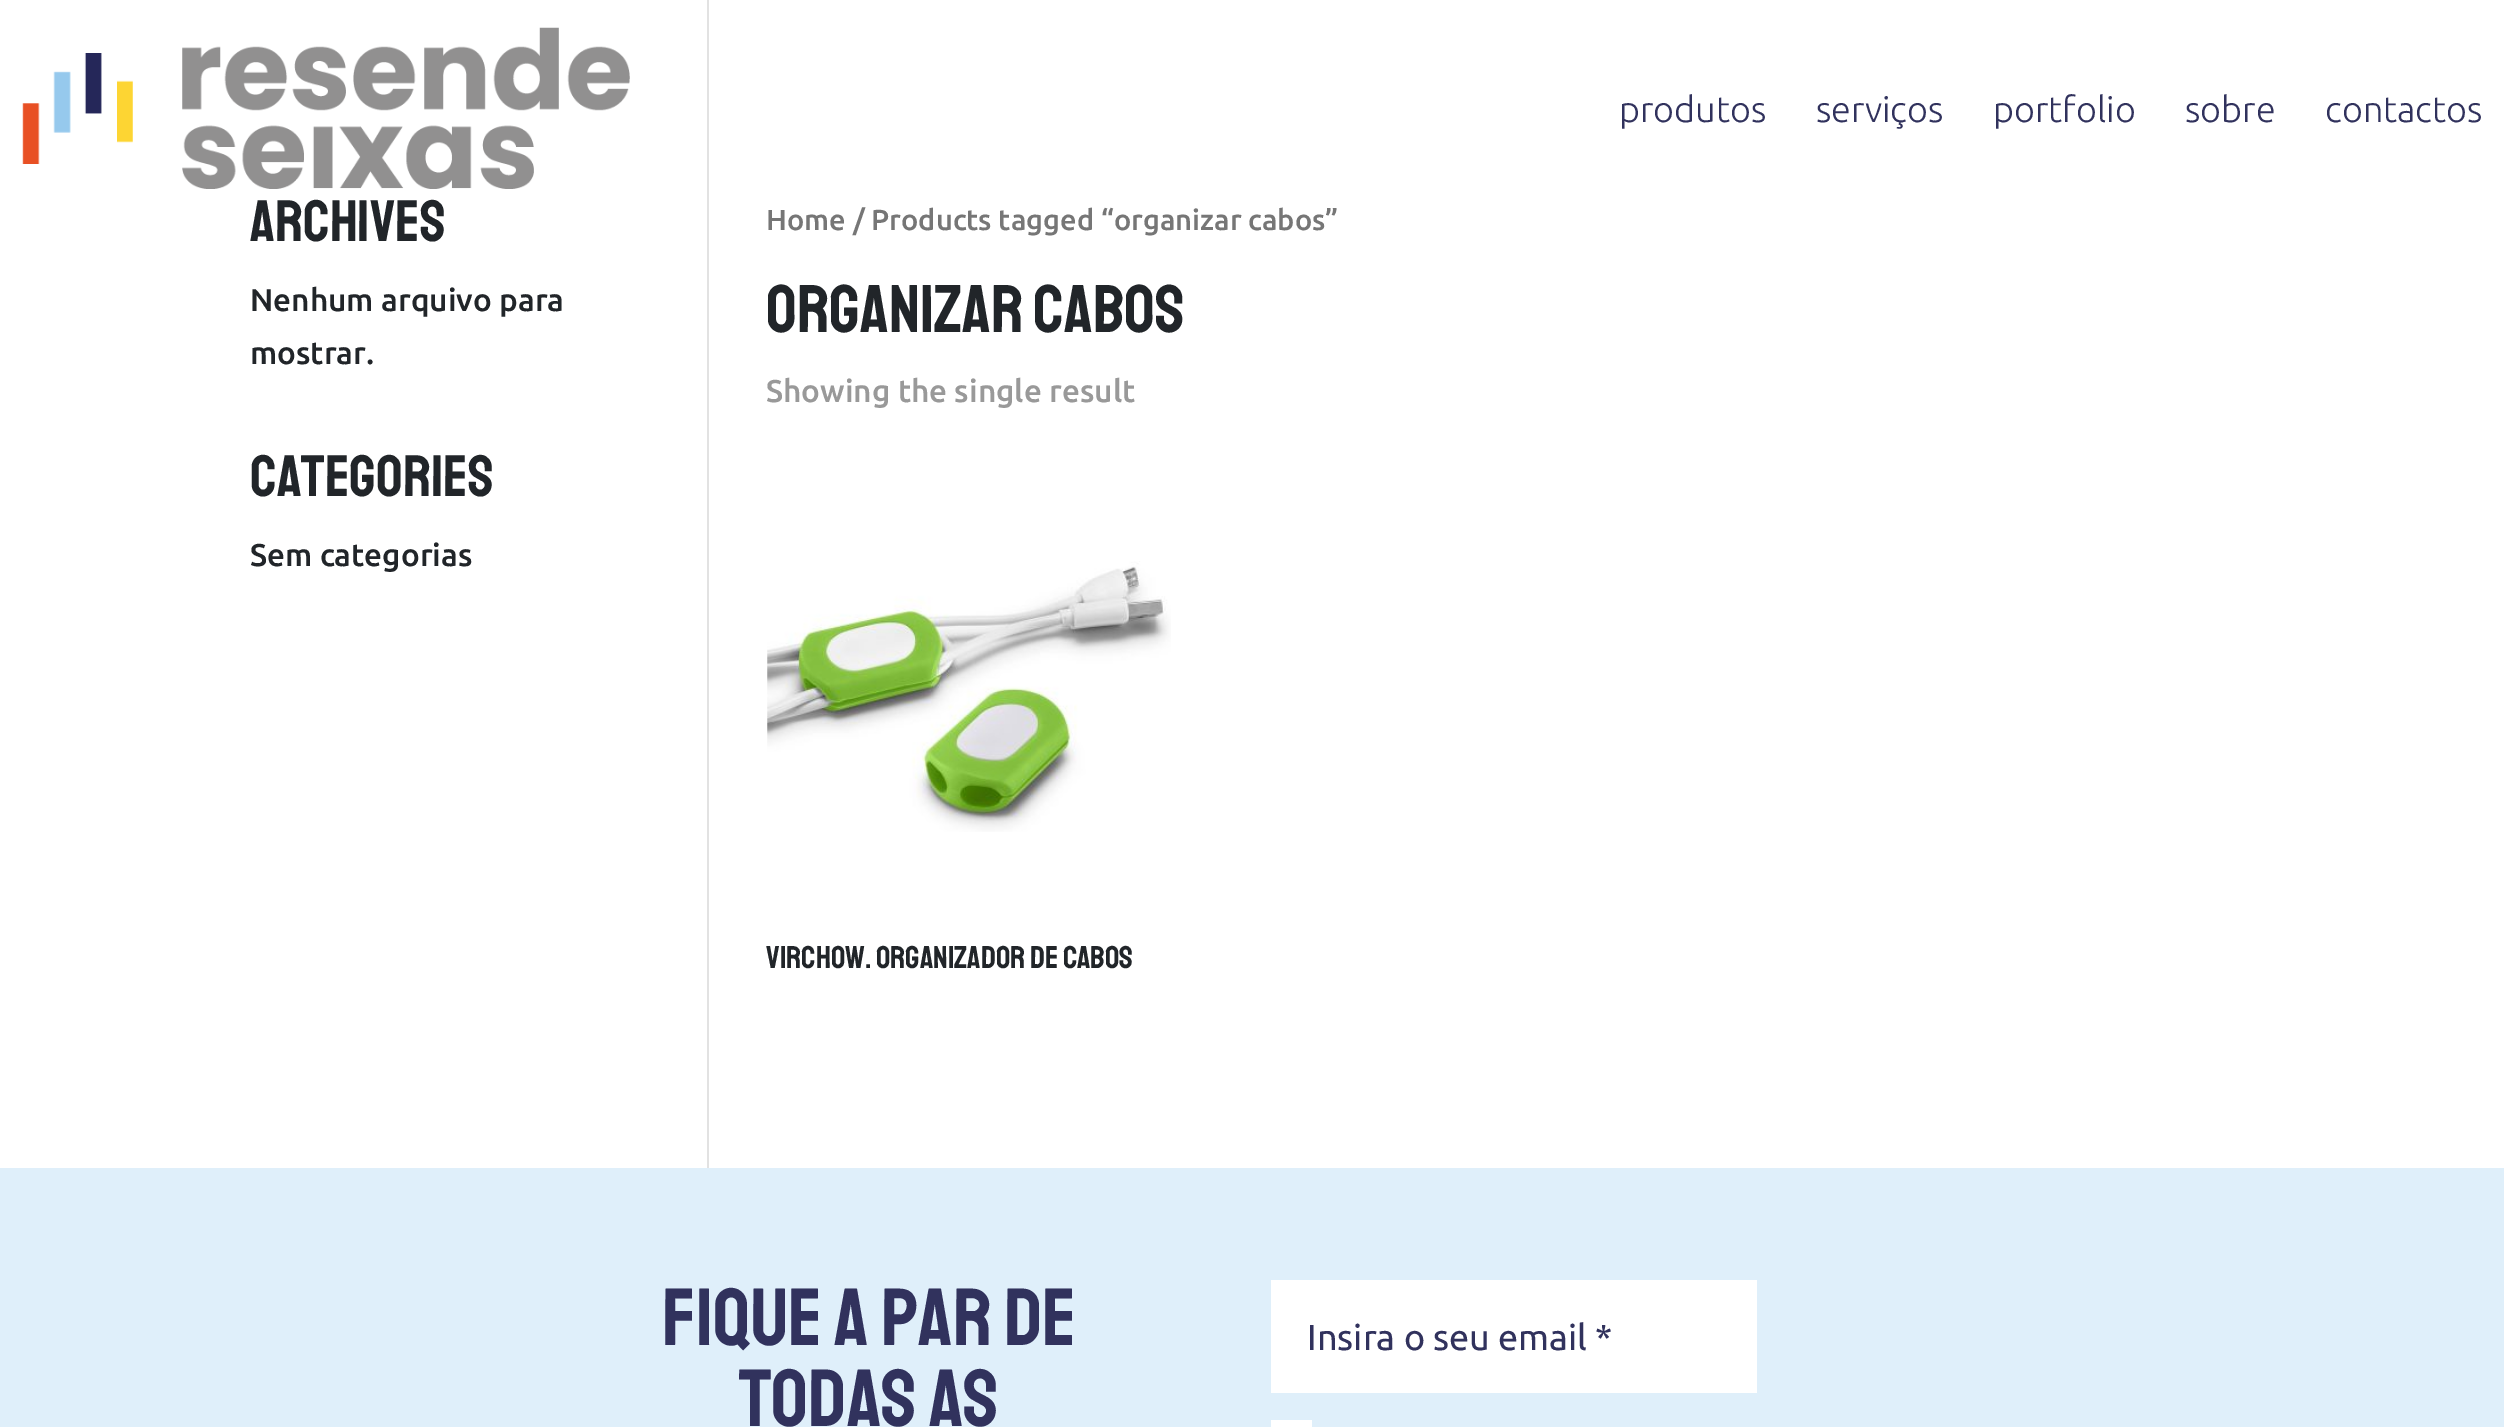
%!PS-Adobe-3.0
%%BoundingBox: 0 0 2504 1427
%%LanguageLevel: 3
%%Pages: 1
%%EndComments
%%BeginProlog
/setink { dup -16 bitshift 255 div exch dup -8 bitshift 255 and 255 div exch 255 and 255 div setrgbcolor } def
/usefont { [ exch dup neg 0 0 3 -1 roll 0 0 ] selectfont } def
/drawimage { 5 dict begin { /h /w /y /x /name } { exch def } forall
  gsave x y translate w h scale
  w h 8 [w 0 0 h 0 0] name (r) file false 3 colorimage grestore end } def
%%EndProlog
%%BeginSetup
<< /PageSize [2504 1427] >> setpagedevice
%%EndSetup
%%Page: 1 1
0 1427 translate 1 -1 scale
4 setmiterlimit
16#FFFFFF setink
0 0 2504 1427 rectfill
(img1.raw) 22 27 608 162 drawimage
/Ubuntu-Light 36 usefont
16#31325D setink
[
    [(produtos) 1619 122]
    [(serviços) 1816 122]
    [(portfolio) 1993 122]
    [(sobre) 2185 122]
    [(contactos) 2325 122]
] { aload pop moveto show } forall
16#E2E2E2 setink
707 0 2 1168 rectfill
/Staatliches-Regular 58.5 usefont
16#212529 setink
250 241 moveto (Archives) show
/Ubuntu-Medium 31.5 usefont
250 311 moveto (Nenhum arquivo para) show
250 364 moveto (mostrar.) show
/Staatliches-Regular 58.5 usefont
250 496 moveto (Categories) show
/Ubuntu-Medium 31.5 usefont
250 566 moveto (Sem categorias) show
/Ubuntu-Medium 29 usefont
16#767676 setink
766 230 moveto (Home / Products tagged “organizar cabos”) show
/Staatliches-Regular 67.5 usefont
16#212529 setink
766 332 moveto (organizar cabos) show
/Ubuntu-Medium 31.5 usefont
16#999999 setink
766 402 moveto (Showing the single result) show
(img2.raw) 767 561 404 271 drawimage
/Staatliches-Regular 31.5 usefont
16#212529 setink
766 968 moveto (Virchow. Organizador de cabos) show
16#DFEFFA setink
0 1168 2504 259 rectfill
/Staatliches-Regular 81 usefont
16#31325D setink
662 1345 moveto (Fique a par de) show
739 1426 moveto (todas as) show
16#FFFFFF setink
1271 1280 486 113 rectfill
/Ubuntu-Regular 36 usefont
16#31325D setink
1307 1350 moveto (Insira o seu email *) show
16#FFFFFF setink
1271 1420 41 7 rectfill
showpage
%%EOF
